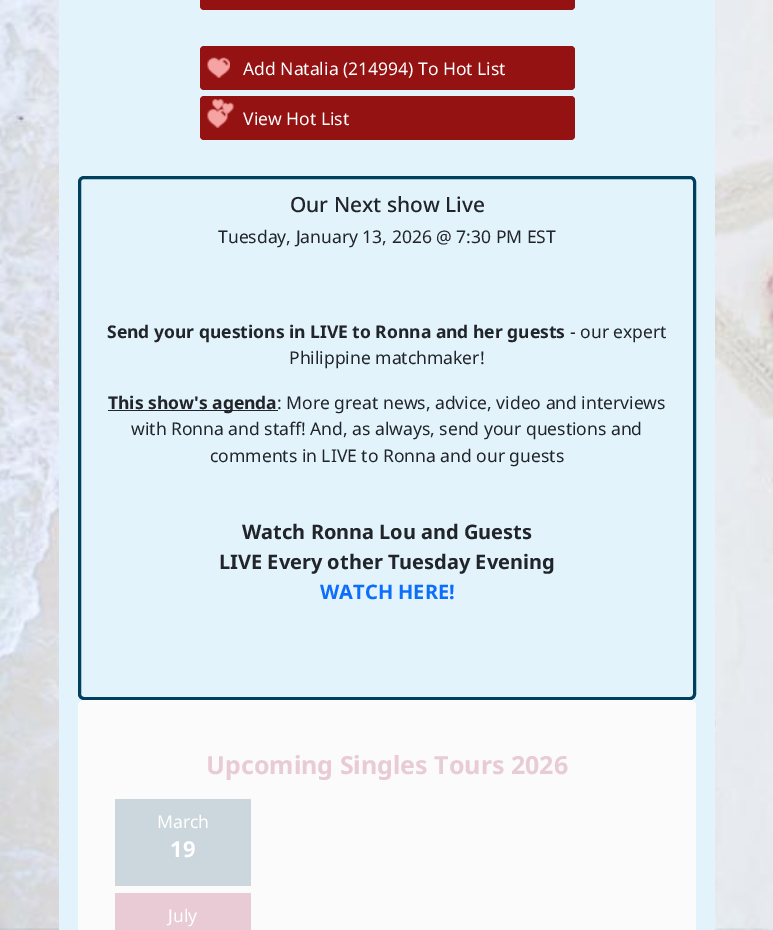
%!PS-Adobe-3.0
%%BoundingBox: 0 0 773 930
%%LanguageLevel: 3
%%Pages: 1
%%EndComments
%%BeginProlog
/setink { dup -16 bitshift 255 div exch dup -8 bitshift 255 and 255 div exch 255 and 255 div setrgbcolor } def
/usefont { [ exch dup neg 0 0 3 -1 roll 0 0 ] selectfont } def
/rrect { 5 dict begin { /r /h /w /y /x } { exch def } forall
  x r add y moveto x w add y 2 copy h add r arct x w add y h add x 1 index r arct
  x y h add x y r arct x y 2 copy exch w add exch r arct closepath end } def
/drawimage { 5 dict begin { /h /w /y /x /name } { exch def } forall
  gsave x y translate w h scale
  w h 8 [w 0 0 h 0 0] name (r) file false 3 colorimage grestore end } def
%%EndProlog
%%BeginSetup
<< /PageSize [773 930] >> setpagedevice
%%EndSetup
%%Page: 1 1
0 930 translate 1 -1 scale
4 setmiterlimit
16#FFFFFF setink
0 0 773 930 rectfill
(img1.raw) 0 0 773 930 drawimage
16#E2F3FB setink
59 0 656 930 rectfill
16#941212 setink
200 -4 375 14 4 rrect fill
200 46 375 44 4 rrect fill
(img2.raw) 207 57 23 21 drawimage
/NotoSans-Regular 17.5 usefont
16#FFFFFF setink
243 75 moveto (Add Natalia \(214994\) To Hot List) show
16#941212 setink
200 96 375 44 4 rrect fill
(img3.raw) 207 99 27 29 drawimage
16#FFFFFF setink
243 125 moveto (View Hot List) show
16#003F5E setink
3 setlinewidth
79.5 177.5 615 521 4.5 rrect stroke
/NotoSans-Medium 20.9 usefont
16#212529 setink
290 212 moveto (Our Next show Live) show
/NotoSans-Regular 17.5 usefont
218 243 moveto (Tuesday, January 13, 2026 @ 7:30 PM EST) show
/NotoSans-Bold 17.5 usefont
107 338 moveto (Send your questions in LIVE to Ronna and her guests) show
/NotoSans-Regular 17.5 usefont
570 338 moveto (- our expert) show
289 364 moveto (Philippine matchmaker!) show
108 410 170 1 rectfill
/NotoSans-Bold 17.5 usefont
108 409 moveto (This show's agenda) show
/NotoSans-Regular 17.5 usefont
[
    [(: More great news, advice, video and interviews) 277 409]
    [(with Ronna and staff! And, as always, send your questions and) 131 435]
    [(comments in LIVE to Ronna and our guests) 210 462]
] { aload pop moveto show } forall
/NotoSans-Bold 20 usefont
242 539 moveto (Watch Ronna Lou and Guests) show
219 569 moveto (LIVE Every other Tuesday Evening) show
16#0D6EFD setink
320 599 moveto (WATCH HERE!) show
16#FBFBFB setink
78 700 618 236 6 rrect fill
/NotoSans-Bold 25 usefont
16#E8CBD5 setink
206 774 moveto (Upcoming Singles Tours 2026) show
16#CBD7DD setink
115 799 136 87 rectfill
/NotoSans-Regular 17.5 usefont
16#FFFFFF setink
157 828 moveto (March) show
/NotoSans-Bold 22 usefont
170 857 moveto (19) show
16#E8CBD5 setink
115 893 136 37 rectfill
/NotoSans-Regular 17.5 usefont
16#FFFFFF setink
168 922 moveto (July) show
showpage
%%EOF
